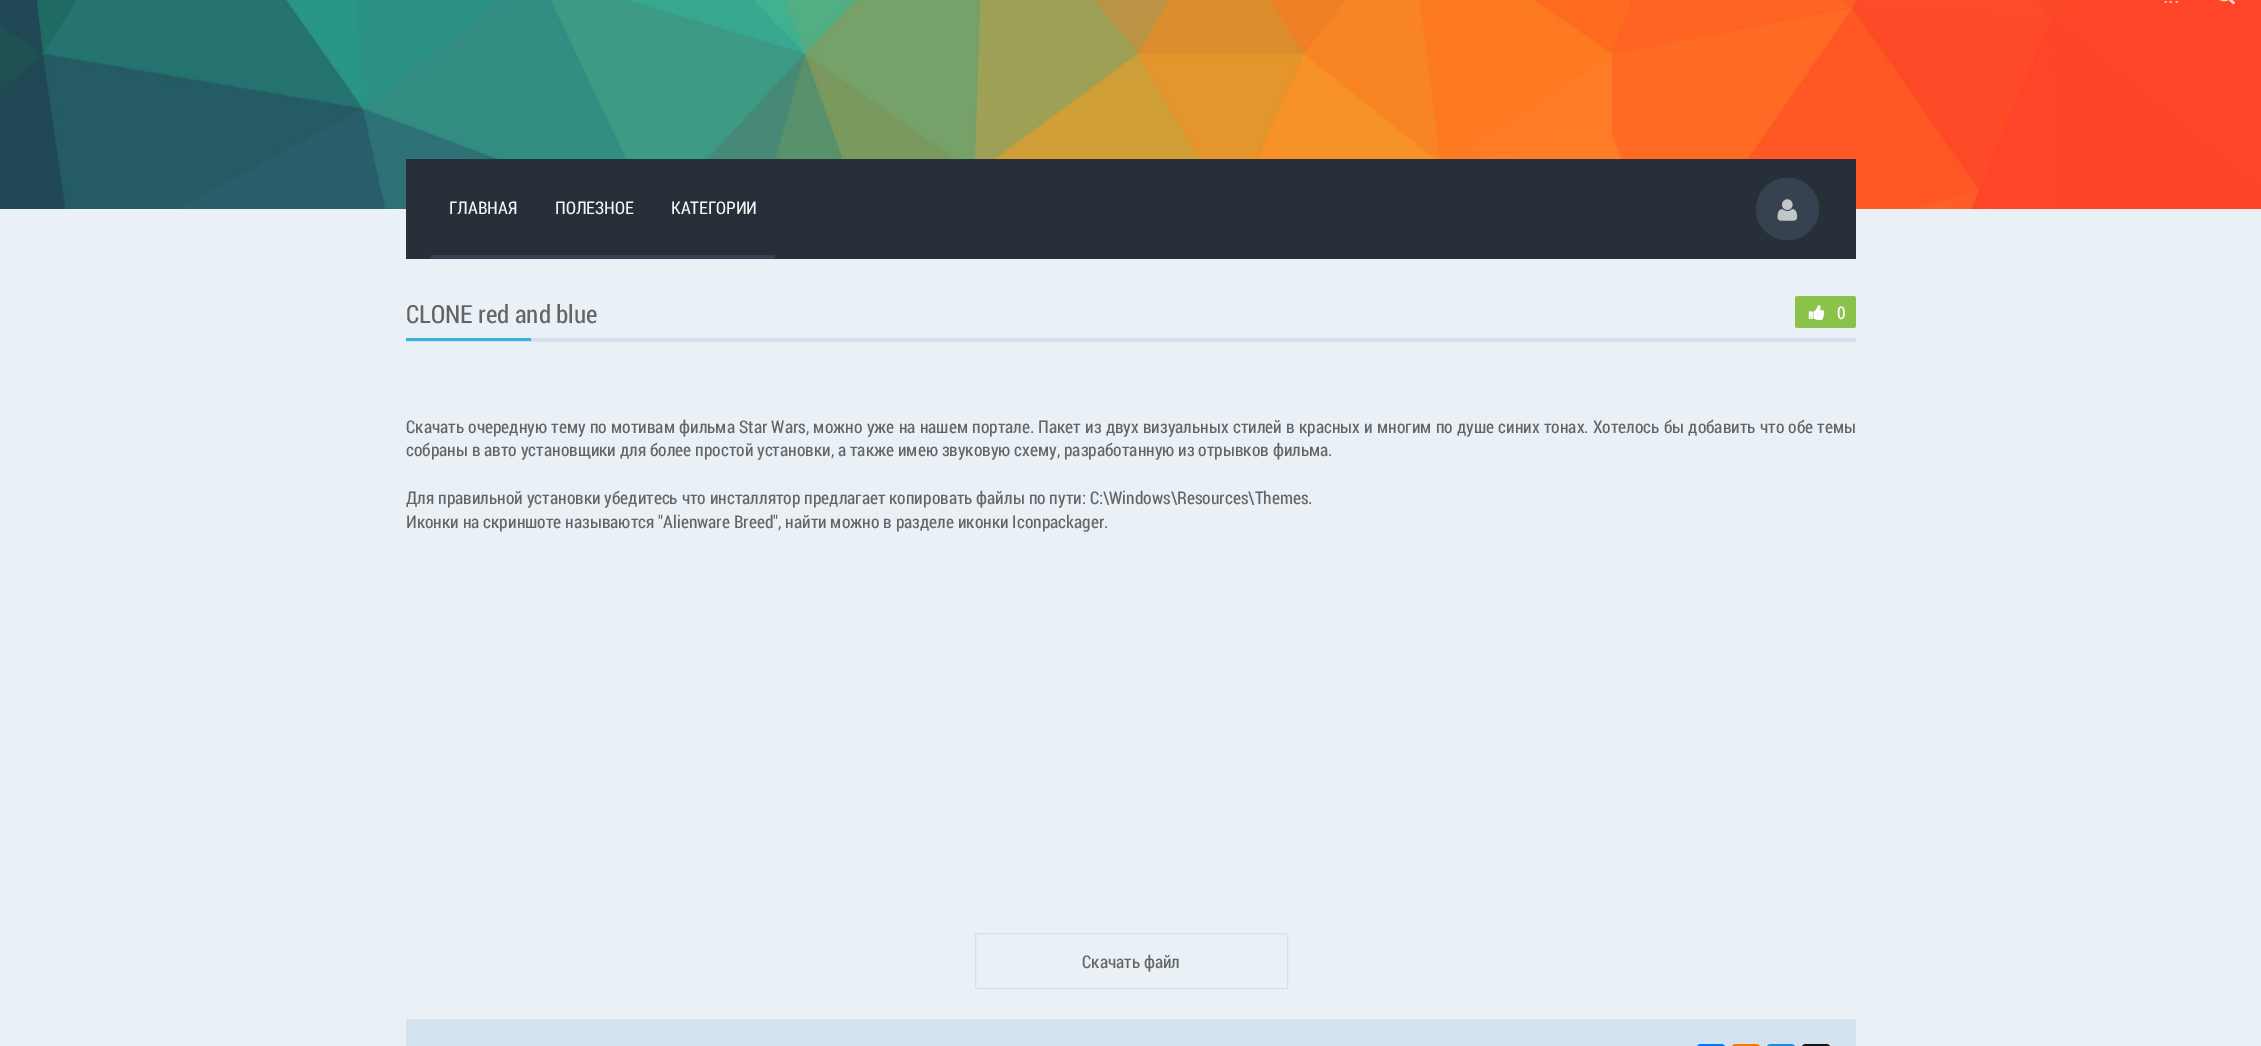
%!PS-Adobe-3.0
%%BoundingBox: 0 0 2261 1046
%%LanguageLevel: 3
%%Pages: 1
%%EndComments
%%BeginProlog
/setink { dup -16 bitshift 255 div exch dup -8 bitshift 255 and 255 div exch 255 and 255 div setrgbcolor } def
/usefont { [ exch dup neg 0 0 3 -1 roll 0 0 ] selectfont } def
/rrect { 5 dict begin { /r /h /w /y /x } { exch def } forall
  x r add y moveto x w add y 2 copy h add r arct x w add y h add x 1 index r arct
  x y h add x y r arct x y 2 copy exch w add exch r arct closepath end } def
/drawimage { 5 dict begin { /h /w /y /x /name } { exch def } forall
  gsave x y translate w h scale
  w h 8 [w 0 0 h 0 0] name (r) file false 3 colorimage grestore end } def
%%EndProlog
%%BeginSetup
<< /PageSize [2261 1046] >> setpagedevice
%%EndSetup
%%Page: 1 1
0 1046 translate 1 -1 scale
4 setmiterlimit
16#E9F0F6 setink
0 0 2261 1046 rectfill
(img1.raw) 0 0 2261 209 drawimage
/LiberationSans-Regular 19 usefont
16#FFC7BE setink
2163 3 moveto (...) show
(img2.raw) 2219 0 16 5 drawimage
16#273039 setink
406 159 1450 100 rectfill
16#364250 setink
431 255 344 4 rectfill
/RobotoCondensed-Regular 17.5 usefont
16#F4F5F5 setink
[
    [(ГЛАВНАЯ) 449 214]
    [(ПОЛЕЗНОЕ) 555 214]
    [(КАТЕГОРИИ) 671 214]
] { aload pop moveto show } forall
16#364250 setink
1756 178 63 62 31 rrect fill
(img3.raw) 1777 199 21 22 drawimage
16#D3E2EE setink
406 338 1450 4 rectfill
/RobotoCondensed-Regular 25 usefont
16#646464 setink
406 323 moveto (CLONE red and blue) show
16#8BC34A setink
1795 296 61 32 2.5 rrect fill
(img4.raw) 1808 305 17 16 drawimage
/RobotoCondensed-Regular 17.5 usefont
16#FFFFFF setink
1837 319 moveto (0) show
16#32B5E2 setink
406 338 125 3 rectfill
16#646464 setink
406 433 moveto 0.4 0 32 (Скачать очередную тему по мотивам фильма Star Wars, можно уже на нашем портале. Пакет из двух визуальных стилей в красных и многим по душе синих тонах. Хотелось бы добавить что обе темы) widthshow
[
    [(собраны в авто установщики для более простой установки, а также имею звуковую схему, разработанную из отрывков фильма.) 406 456]
    [(Для правильной установки убедитесь что инсталлятор предлагает копировать файлы по пути: C:\\Windows\\Resources\\Themes.) 406 504]
    [(Иконки на скриншоте называются "Alienware Breed", найти можно в разделе иконки Iconpackager.) 406 528]
] { aload pop moveto show } forall
16#D3E2EE setink
975.5 933.5 312 55 rectstroke
16#646464 setink
1082 968 moveto (Скачать файл) show
16#D3E2EE setink
406 1019 1450 27 rectfill
16#0077FF setink
1696 1044 30 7 5 rrect fill
16#FF7700 setink
1731 1044 30 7 5 rrect fill
16#168DE2 setink
1766 1044 30 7 5 rrect fill
16#0F1419 setink
1801 1044 30 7 5 rrect fill
showpage
%%EOF
